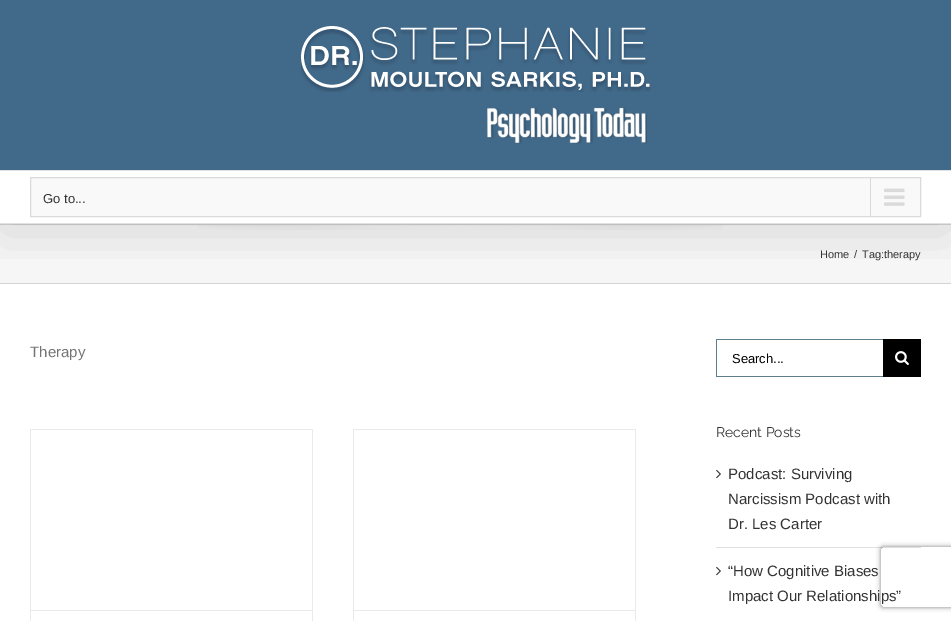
%!PS-Adobe-3.0
%%BoundingBox: 0 0 951 621
%%LanguageLevel: 3
%%Pages: 1
%%EndComments
%%BeginProlog
/setink { dup -16 bitshift 255 div exch dup -8 bitshift 255 and 255 div exch 255 and 255 div setrgbcolor } def
/usefont { [ exch dup neg 0 0 3 -1 roll 0 0 ] selectfont } def
/setalpha { dup .setfillconstantalpha .setstrokeconstantalpha } def
/rrect { 5 dict begin { /r /h /w /y /x } { exch def } forall
  x r add y moveto x w add y 2 copy h add r arct x w add y h add x 1 index r arct
  x y h add x y r arct x y 2 copy exch w add exch r arct closepath end } def
/softshadow { 12 dict begin { /a /b /q /h /w /y /x } { exch def } forall gsave /was 0 def
  9 -2 -9 { dup b mul 4 div /e exch def 1 sub .425 mul 2.718 exch exp 1 add a .99 .min exch div /now exch def
    1 1 now sub 1 was sub div sub setalpha /was now def
    w h .min e 2 mul add 0 gt { x e sub y e sub w e 2 mul add h e 2 mul add
      q e add b .6 mul add w h .min 2 div e add .min 0 .max rrect fill } if } for grestore end } def
/drawimage { 5 dict begin { /h /w /y /x /name } { exch def } forall
  gsave x y translate w h scale
  w h 8 [w 0 0 h 0 0] name (r) file false 3 colorimage grestore end } def
%%EndProlog
%%BeginSetup
<< /PageSize [951 621] /PageUsesTransparency true >> setpagedevice
%%EndSetup
%%Page: 1 1
0 .pushpdf14devicefilter
0 621 translate 1 -1 scale
4 setmiterlimit
16#FFFFFF setink
0 0 951 621 rectfill
16#F6F6F6 setink
0 225 951 58 rectfill
(img4.raw) 198 225 525 5 drawimage
16#D2D3D4 setink
0 224 951 1 rectfill
0 283 951 1 rectfill
gsave
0 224 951 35 rectclip
16#000000 setink
2 12 947 220 0 25 0.14 softshadow
grestore
16#416989 setink
0 0 951 170 rectfill
16#E1E1E1 setink
0 170 951 1 rectfill
(img1.raw) 301 26 350 66 drawimage
(img2.raw) 487 107 160 37 drawimage
0 223 951 1 rectfill
16#F9F9F9 setink
30.5 177.5 moveto 920.5 177.5 lineto 920.5 216.5 lineto 30.5 216.5 lineto closepath gsave fill grestore
16#DADADA setink
stroke
/LiberationSans-Regular 13 usefont
16#333333 setink
43 203 moveto (Go to...) show
16#DADADA setink
870 178 1 38 rectfill
(img3.raw) 884 188 21 18 drawimage
/LiberationSans-Regular 11 usefont
16#333333 setink
[
    [(Home) 820 258]
    [(/) 854 258]
    [(Tag:therapy) 862 258]
] { aload pop moveto show } forall
/LiberationSans-Regular 15 usefont
16#747474 setink
30 357 moveto (Therapy) show
[
    [30 429 283 1 16#EBEAEA]
    [312 429 1 192 16#EBEAEA]
    [30 429 1 192 16#EBEAEA]
    [31 610 281 1 16#EBEAEA]
    [353 429 283 1 16#EBEAEA]
    [635 429 1 192 16#EBEAEA]
    [353 429 1 192 16#EBEAEA]
    [354 610 281 1 16#EBEAEA]
    [716 339 167 1 16#607D8B]
    [716 376 167 1 16#607D8B]
    [716 339 1 38 16#607D8B]
] { aload pop setink rectfill } forall
/LiberationSans-Regular 13 usefont
16#000000 setink
732 363 moveto (Search...) show
883 339 38 38 rectfill
(img5.raw) 895 351 14 14 drawimage
/Raleway-Regular 14 usefont
16#333333 setink
716 437 moveto (Recent Posts) show
16#E0DEDE setink
716 547 205 1 rectfill
(img6.raw) 716 469 5 10 drawimage
/LiberationSans-Regular 15 usefont
16#333333 setink
[
    [(Podcast: Surviving) 728 479]
    [(Narcissism Podcast with) 728 504]
    [(Dr. Les Carter) 728 529]
] { aload pop moveto show } forall
(img6.raw) 716 566 5 10 drawimage
728 576 moveto (“How Cognitive Biases) show
728 601 moveto (Impact Our Relationships”) show
gsave
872 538 moveto 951 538 lineto 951 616 lineto 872 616 lineto closepath 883 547 moveto 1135 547 lineto 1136 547 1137 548 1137 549 curveto 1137 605 lineto 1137 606 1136 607 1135 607 curveto 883 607 lineto 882 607 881 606 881 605 curveto 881 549 lineto 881 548 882 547 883 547 curveto closepath eoclip newpath
16#808080 setink
881 547 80 60 2 2.5 1 softshadow
grestore
.poppdf14devicefilter showpage
%%EOF
